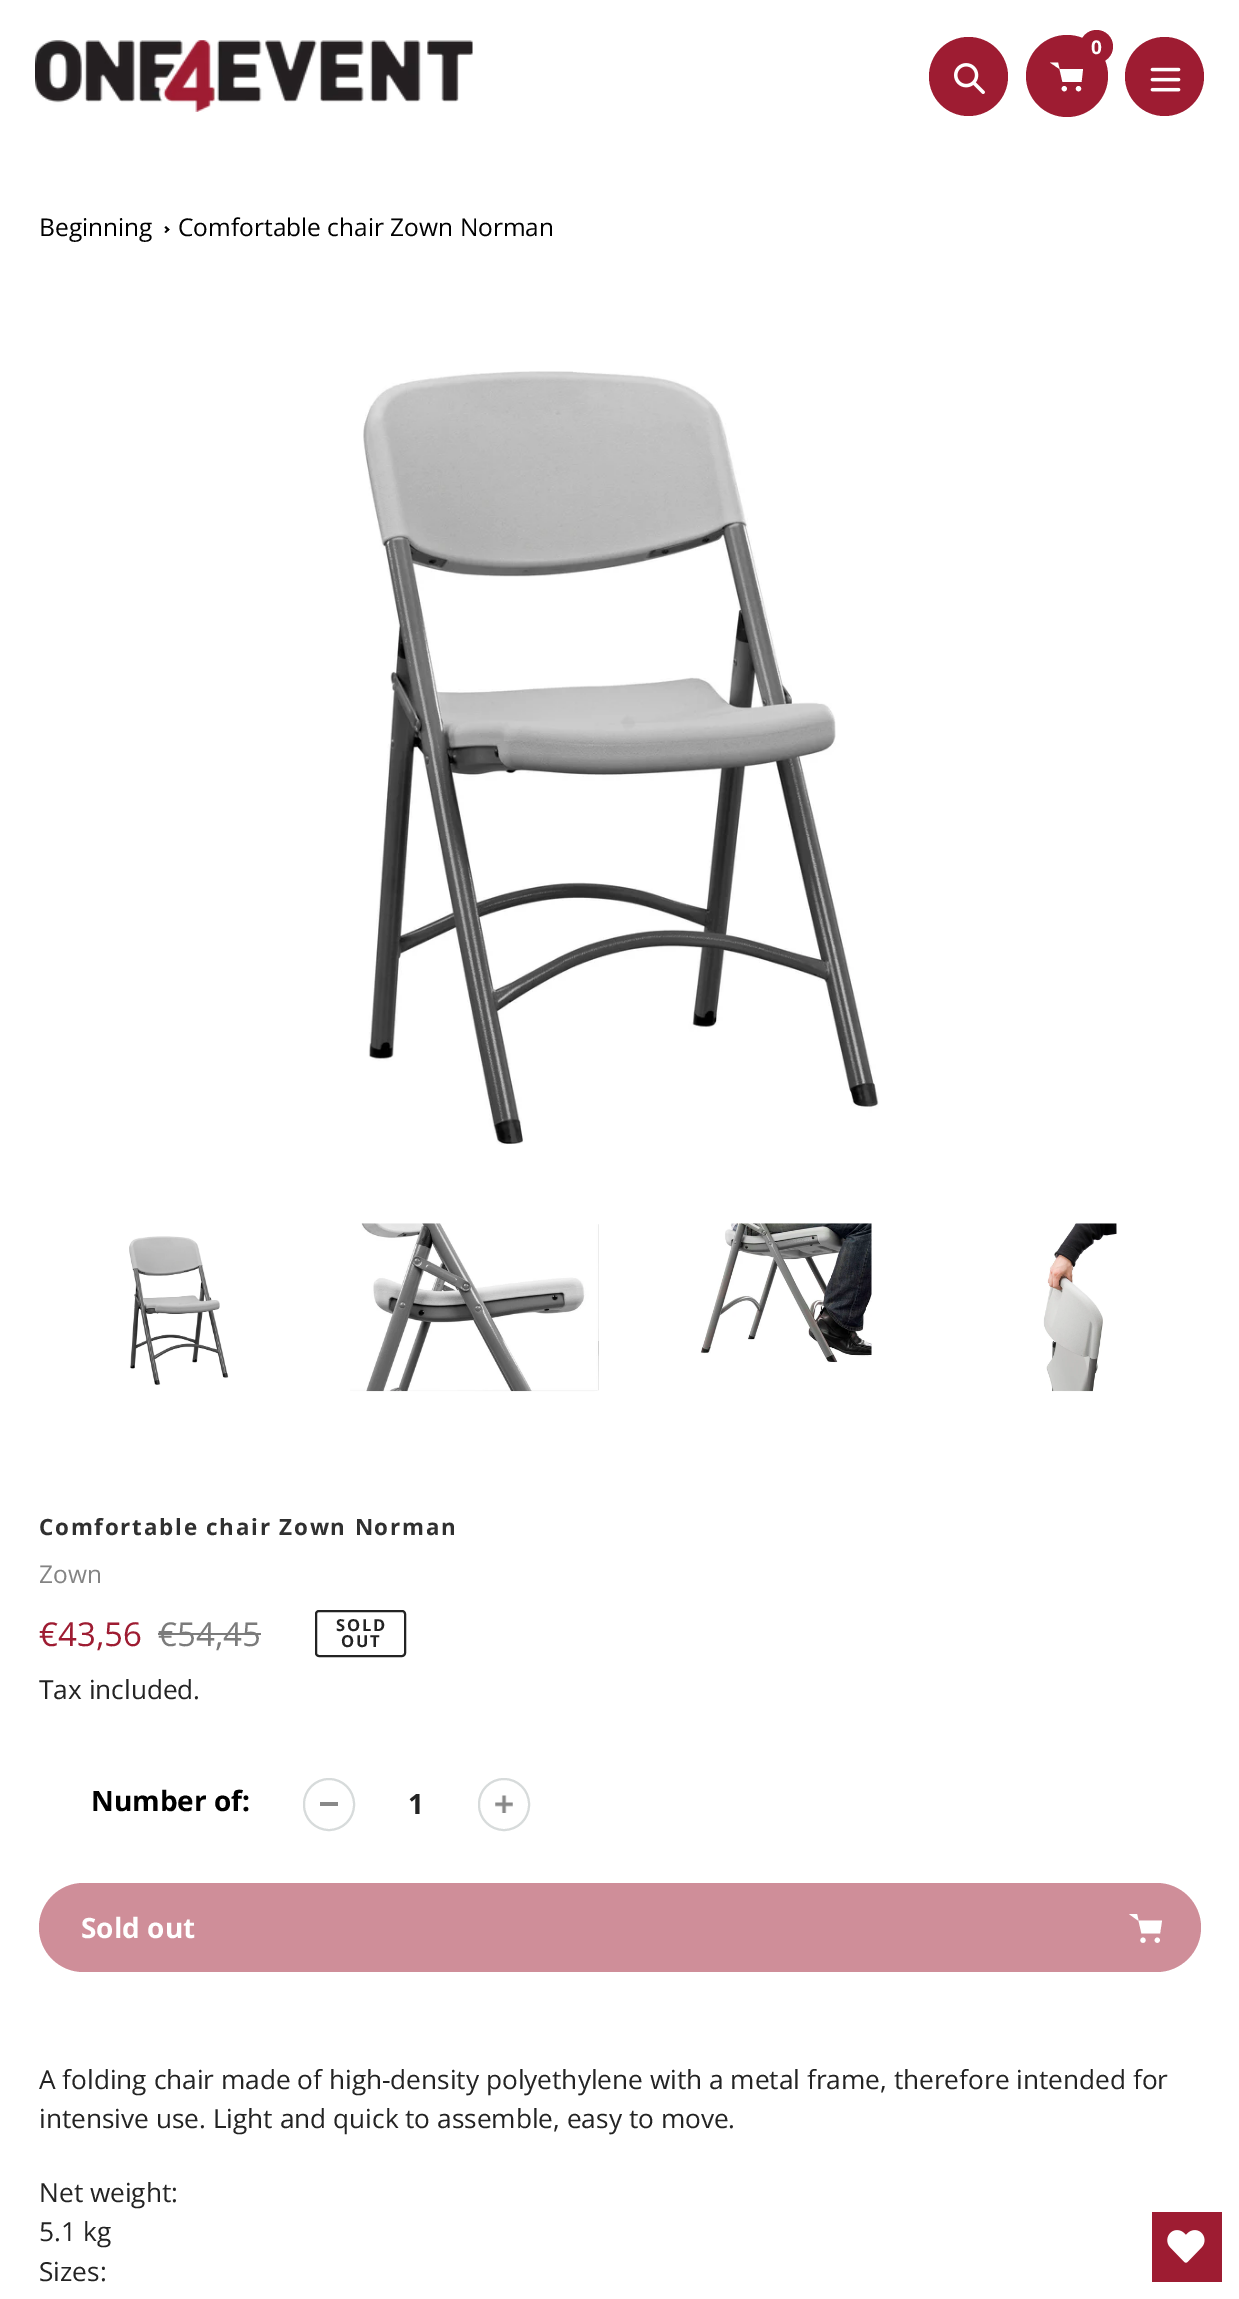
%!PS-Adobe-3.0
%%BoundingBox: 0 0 1239 2299
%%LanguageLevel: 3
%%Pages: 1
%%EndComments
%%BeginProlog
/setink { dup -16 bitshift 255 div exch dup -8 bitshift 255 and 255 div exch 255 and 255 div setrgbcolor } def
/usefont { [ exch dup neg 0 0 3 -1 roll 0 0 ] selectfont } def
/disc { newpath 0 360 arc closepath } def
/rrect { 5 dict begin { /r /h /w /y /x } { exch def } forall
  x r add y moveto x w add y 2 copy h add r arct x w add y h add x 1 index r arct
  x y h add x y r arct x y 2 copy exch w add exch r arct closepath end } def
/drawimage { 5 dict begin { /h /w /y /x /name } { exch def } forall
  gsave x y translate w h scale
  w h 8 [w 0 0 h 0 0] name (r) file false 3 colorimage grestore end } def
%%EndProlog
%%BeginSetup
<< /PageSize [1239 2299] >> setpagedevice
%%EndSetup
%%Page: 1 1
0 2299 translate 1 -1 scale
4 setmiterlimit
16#FFFFFF setink
0 0 1239 2299 rectfill
(img1.raw) 35 40 438 72 drawimage
16#9E1C32 setink
968.5 76.5 39.5 disc fill
(img2.raw) 954 63 31 31 drawimage
1067 76 41 disc fill
16#FFFFFF setink
1059.5 69 moveto 1083 69 lineto 1081.5 82 lineto 1062.5 82 lineto 1058 62.5 lineto 1050 62.5 lineto eofill
16#9E1C32 setink
1096.5 46.5 16.5 disc fill
/OpenSans-Bold 19 usefont
16#FFFFFF setink
1091 54 moveto (0) show
1064.3 88.7 2.6 disc fill
1078.5 88.7 2.6 disc fill
16#9E1C32 setink
1164.5 76.5 39.5 disc fill
(img3.raw) 1150 67 31 25 drawimage
/OpenSans-Regular 24.5 usefont
16#000000 setink
39 236 moveto (Beginning) show
166 226 moveto 169.5 229.5 lineto 168 231 lineto 164.5 227.5 lineto closepath fill
168 228.5 moveto 169.5 229.5 lineto 166 233 lineto 164.5 232 lineto closepath fill
178 236 moveto (Comfortable chair Zown Norman) show
(img4.raw) 363 371 516 774 drawimage
(img5.raw) 129 1236 100 149 drawimage
(img6.raw) 350 1223 249 169 drawimage
(img7.raw) 700 1223 172 140 drawimage
(img8.raw) 1043 1223 74 169 drawimage
/OpenSans-Bold 22.4 usefont
16#303030 setink
39 1535 moveto 1.75 0 (Comfortable chair Zown Norman) ashow
/OpenSans-Regular 24.5 usefont
16#838383 setink
39 1583 moveto (Zown) show
/OpenSans-Regular 33 usefont
16#9E1C32 setink
39 1646 moveto (€43,56) show
16#7B7B7B setink
158 1646 moveto (€54,45) show
158 1633 103 2 rectfill
16#232323 setink
2 setlinewidth
316 1611 89 45 3 rrect stroke
/OpenSans-Bold 16.5 usefont
336 1631 moveto 1.75 0 (SOLD) ashow
341 1647 moveto 1.75 0 (OUT) ashow
/OpenSans-Regular 26.25 usefont
39 1699 moveto (Tax included.) show
/OpenSans-Bold 28 usefont
16#000000 setink
91 1811 moveto (Number of:) show
16#898989 setink
320 1802 18 4 rectfill
16#D7DBDB setink
304 1779 50 51 25 rrect stroke
16#232323 setink
408 1814 moveto (1) show
(img9.raw) 495 1795 18 18 drawimage
16#D7DBDB setink
479 1779 50 51 25 rrect stroke
16#CF8E99 setink
39 1883 1162 89 44.5 rrect fill
16#FFFFFF setink
81 1938 moveto (Sold out) show
1143 1940.2 2.6 disc fill
1157.3 1940.2 2.6 disc fill
1138 1920.5 moveto 1162 1920.5 lineto 1160 1933.5 lineto 1141.5 1933.5 lineto 1137 1914 lineto 1129 1914 lineto eofill
/OpenSans-Regular 26.25 usefont
16#232323 setink
[
    [(A folding chair made of high-density polyethylene with a metal frame, therefore intended for) 39 2089]
    [(intensive use. Light and quick to assemble, easy to move.) 39 2128]
    [(Net weight:) 39 2202]
    [(5.1 kg) 39 2241]
    [(Sizes:) 39 2281]
] { aload pop moveto show } forall
16#9E1C32 setink
1152 2212 70 70 rectfill
(img10.raw) 1167 2230 38 33 drawimage
showpage
%%EOF
